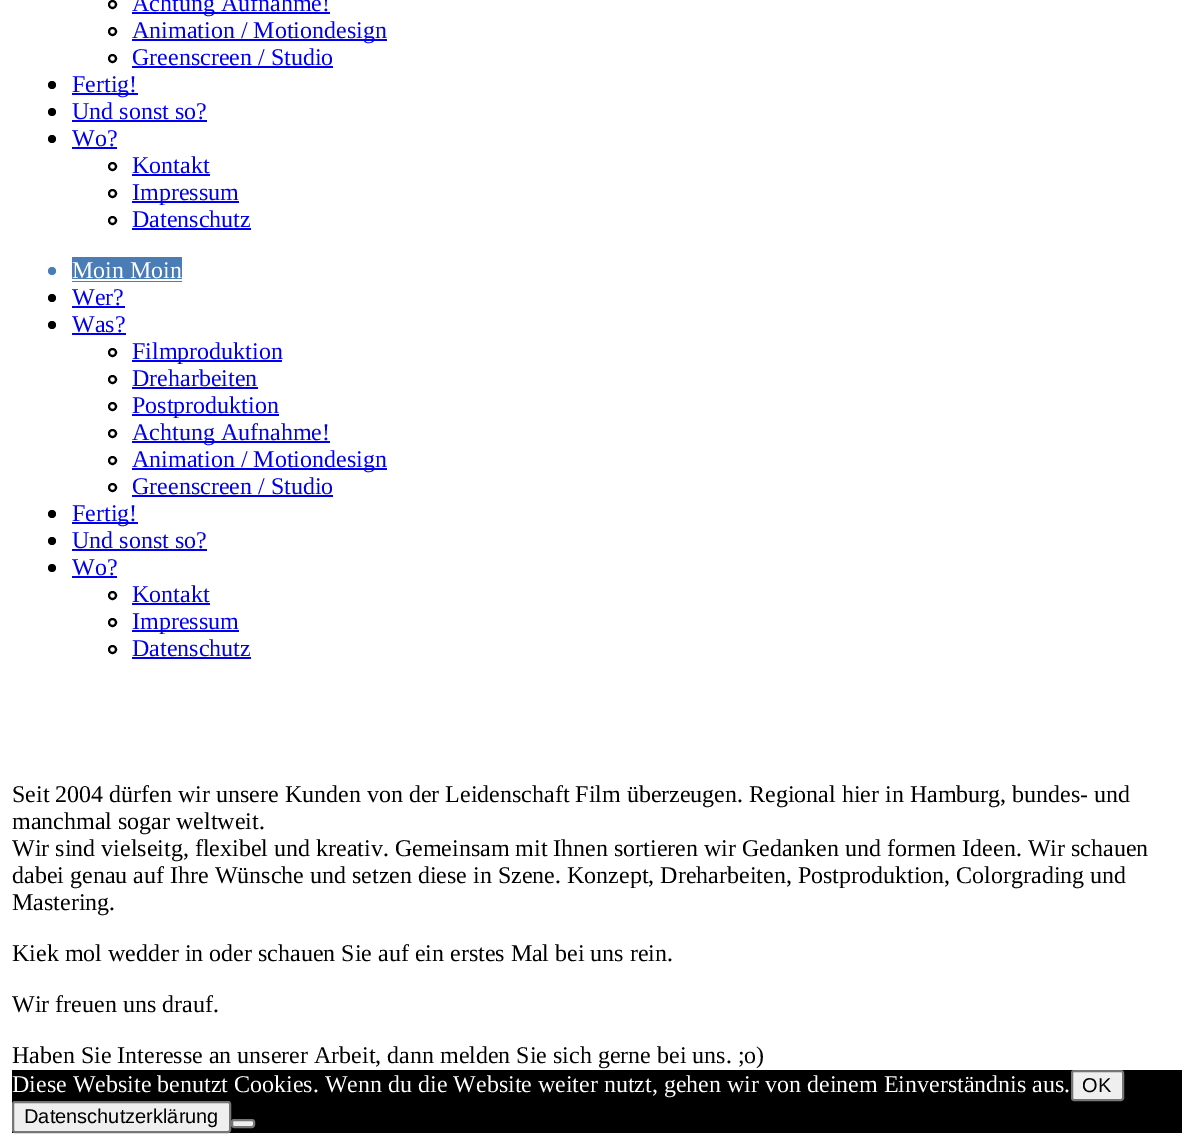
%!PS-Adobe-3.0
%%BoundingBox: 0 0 1193 1144
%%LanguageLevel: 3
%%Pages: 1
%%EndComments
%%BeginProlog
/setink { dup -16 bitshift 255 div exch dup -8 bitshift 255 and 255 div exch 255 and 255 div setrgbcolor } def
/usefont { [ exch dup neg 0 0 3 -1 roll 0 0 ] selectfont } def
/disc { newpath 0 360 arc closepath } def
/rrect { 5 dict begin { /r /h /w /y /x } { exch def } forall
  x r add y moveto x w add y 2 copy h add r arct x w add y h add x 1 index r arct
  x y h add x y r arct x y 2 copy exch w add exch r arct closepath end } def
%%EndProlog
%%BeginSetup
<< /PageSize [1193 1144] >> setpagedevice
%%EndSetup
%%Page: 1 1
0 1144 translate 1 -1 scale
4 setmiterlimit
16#FFFFFF setink
0 0 1193 1144 rectfill
16#000000 setink
2 setlinewidth
112.5 4.5 3.5 disc stroke
16#0000EE setink
132 12 198 2 rectfill
/LiberationSerif-Regular 24 usefont
132 11 moveto (Achtung Aufnahme!) show
16#000000 setink
112.5 31.5 3.5 disc stroke
16#0000EE setink
132 39 255 2 rectfill
132 38 moveto (Animation / Motiondesign) show
16#000000 setink
112.5 58.5 3.5 disc stroke
16#0000EE setink
132 65 moveto (Greenscreen / Studio) show
132 66 201 2 rectfill
16#000000 setink
52 85 4 disc fill
16#0000EE setink
72 93 66 2 rectfill
72 92 moveto (Fertig!) show
16#000000 setink
52 112 4 disc fill
16#0000EE setink
72 119 moveto (Und sonst so?) show
72 120 135 2 rectfill
16#000000 setink
52 139 4 disc fill
16#0000EE setink
72 146 moveto (Wo?) show
72 147 45 2 rectfill
16#000000 setink
112.5 166.5 3.5 disc stroke
16#0000EE setink
132 173 moveto (Kontakt) show
132 174 78 2 rectfill
16#000000 setink
112.5 193.5 3.5 disc stroke
16#0000EE setink
132 201 107 2 rectfill
132 200 moveto (Impressum) show
16#000000 setink
112.5 220.5 3.5 disc stroke
16#0000EE setink
132 227 moveto (Datenschutz) show
132 228 119 2 rectfill
16#4A7CB5 setink
52 271 4 disc fill
72 257 110 25 rectfill
16#FFFFFF setink
72 278 moveto (Moin Moin) show
72 279 110 2 rectfill
16#000000 setink
52 298 4 disc fill
16#0000EE setink
72 305 moveto (Wer?) show
72 306 53 2 rectfill
16#000000 setink
52 325 4 disc fill
16#0000EE setink
72 332 moveto (Was?) show
72 333 54 2 rectfill
16#000000 setink
112.5 352.5 3.5 disc stroke
16#0000EE setink
132 360 150 2 rectfill
132 359 moveto (Filmproduktion) show
16#000000 setink
112.5 379.5 3.5 disc stroke
16#0000EE setink
132 386 moveto (Dreharbeiten) show
132 387 126 2 rectfill
16#000000 setink
112.5 406.5 3.5 disc stroke
16#0000EE setink
132 414 147 2 rectfill
132 413 moveto (Postproduktion) show
16#000000 setink
112.5 433.5 3.5 disc stroke
16#0000EE setink
132 441 198 2 rectfill
132 440 moveto (Achtung Aufnahme!) show
16#000000 setink
112.5 460.5 3.5 disc stroke
16#0000EE setink
132 468 255 2 rectfill
132 467 moveto (Animation / Motiondesign) show
16#000000 setink
112.5 487.5 3.5 disc stroke
16#0000EE setink
132 494 moveto (Greenscreen / Studio) show
132 495 201 2 rectfill
16#000000 setink
52 514 4 disc fill
16#0000EE setink
72 522 66 2 rectfill
72 521 moveto (Fertig!) show
16#000000 setink
52 541 4 disc fill
16#0000EE setink
72 548 moveto (Und sonst so?) show
72 549 135 2 rectfill
16#000000 setink
52 568 4 disc fill
16#0000EE setink
72 575 moveto (Wo?) show
72 576 45 2 rectfill
16#000000 setink
112.5 595.5 3.5 disc stroke
16#0000EE setink
132 602 moveto (Kontakt) show
132 603 78 2 rectfill
16#000000 setink
112.5 622.5 3.5 disc stroke
16#0000EE setink
132 630 107 2 rectfill
132 629 moveto (Impressum) show
16#000000 setink
112.5 649.5 3.5 disc stroke
16#0000EE setink
132 656 moveto (Datenschutz) show
132 657 119 2 rectfill
16#000000 setink
[
    [(Seit 2004 dürfen wir unsere Kunden von der Leidenschaft Film überzeugen. Regional hier in Hamburg, bundes- und) 12 802]
    [(manchmal sogar weltweit.) 12 829]
    [(Wir sind vielseitg, flexibel und kreativ. Gemeinsam mit Ihnen sortieren wir Gedanken und formen Ideen. Wir schauen) 12 856]
    [(dabei genau auf Ihre Wünsche und setzen diese in Szene. Konzept, Dreharbeiten, Postproduktion, Colorgrading und) 12 883]
    [(Mastering.) 12 910]
    [(Kiek mol wedder in oder schauen Sie auf ein erstes Mal bei uns rein.) 12 961]
    [(Wir freuen uns drauf.) 12 1012]
    [(Haben Sie Interesse an unserer Arbeit, dann melden Sie sich gerne bei uns. ;o\)) 12 1063]
] { aload pop moveto show } forall
12 1070 1170 63 rectfill
16#FFFFFF setink
12 1092 moveto (Diese Website benutzt Cookies. Wenn du die Website weiter nutzt, gehen wir von deinem Einverständnis aus.) show
16#EFEFEF setink
1072 1071 51 29 2 rrect gsave fill grestore
16#767676 setink
stroke
/LiberationSans-Regular 20 usefont
16#000000 setink
1082 1092 moveto (OK) show
16#EFEFEF setink
13 1102 217 30 2 rrect gsave fill grestore
16#767676 setink
stroke
16#000000 setink
24 1123 moveto (Datenschutzerklärung) show
16#EFEFEF setink
232 1120 22 7 2 rrect gsave fill grestore
16#767676 setink
stroke
showpage
%%EOF
